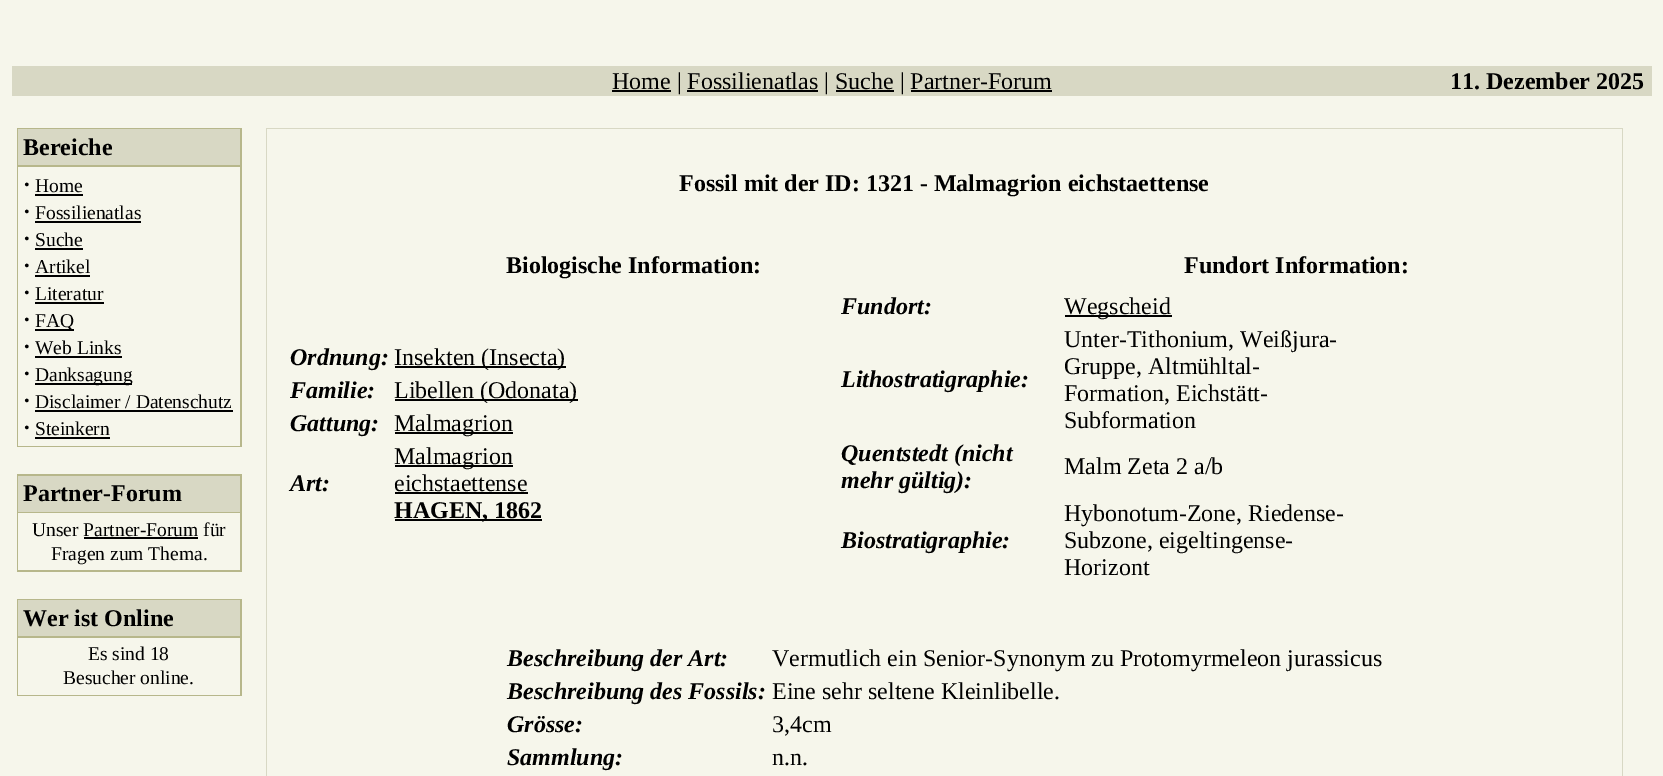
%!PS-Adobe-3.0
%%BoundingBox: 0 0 1663 776
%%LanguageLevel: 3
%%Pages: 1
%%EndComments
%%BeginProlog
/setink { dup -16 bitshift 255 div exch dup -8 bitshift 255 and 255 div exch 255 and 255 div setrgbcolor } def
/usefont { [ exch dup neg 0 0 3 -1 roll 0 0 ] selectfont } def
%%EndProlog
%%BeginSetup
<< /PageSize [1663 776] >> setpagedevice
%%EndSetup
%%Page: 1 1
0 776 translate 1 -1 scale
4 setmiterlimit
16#F6F6EB setink
0 0 1663 776 rectfill
16#D8D8C4 setink
12 66 1640 30 rectfill
16#000000 setink
612 90 59 2 rectfill
/LiberationSerif-Regular 24 usefont
612 89 moveto (Home | Fossilienatlas | Suche | Partner-Forum) show
[
    [687 90 131 2 16#000000]
    [836 90 58 2 16#000000]
    [911 90 141 2 16#000000]
] { aload pop setink rectfill } forall
/LiberationSerif-Bold 24 usefont
1450 89 moveto (11. Dezember 2025) show
16#B7B78B setink
17 128 225 319 rectfill
16#D8D8C4 setink
18 129 222 36 rectfill
16#000000 setink
23 155 moveto (Bereiche) show
16#F6F6EB setink
18 167 222 279 rectfill
/LiberationSerif-Bold 23 usefont
16#000000 setink
23 192 moveto (·) show
/LiberationSerif-Regular 19.5 usefont
35 192 moveto (Home) show
35 194 48 2 rectfill
/LiberationSerif-Bold 23 usefont
23 219 moveto (·) show
/LiberationSerif-Regular 19.5 usefont
35 219 moveto (Fossilienatlas) show
35 221 106 2 rectfill
/LiberationSerif-Bold 23 usefont
23 246 moveto (·) show
/LiberationSerif-Regular 19.5 usefont
35 246 moveto (Suche) show
35 248 48 2 rectfill
/LiberationSerif-Bold 23 usefont
23 273 moveto (·) show
/LiberationSerif-Regular 19.5 usefont
35 273 moveto (Artikel) show
35 275 55 2 rectfill
/LiberationSerif-Bold 23 usefont
23 300 moveto (·) show
/LiberationSerif-Regular 19.5 usefont
35 300 moveto (Literatur) show
35 302 69 2 rectfill
/LiberationSerif-Bold 23 usefont
23 327 moveto (·) show
35 329 39 2 rectfill
/LiberationSerif-Regular 19.5 usefont
35 327 moveto (FAQ) show
/LiberationSerif-Bold 23 usefont
23 354 moveto (·) show
/LiberationSerif-Regular 19.5 usefont
35 354 moveto (Web Links) show
35 356 87 2 rectfill
/LiberationSerif-Bold 23 usefont
23 381 moveto (·) show
35 383 97 2 rectfill
/LiberationSerif-Regular 19.5 usefont
35 381 moveto (Danksagung) show
/LiberationSerif-Bold 23 usefont
23 408 moveto (·) show
/LiberationSerif-Regular 19.5 usefont
35 408 moveto (Disclaimer / Datenschutz) show
35 410 198 2 rectfill
/LiberationSerif-Bold 23 usefont
23 435 moveto (·) show
/LiberationSerif-Regular 19.5 usefont
35 435 moveto (Steinkern) show
[
    [35 437 75 2 16#000000]
    [17 474 225 98 16#B7B78B]
    [18 476 222 36 16#D8D8C4]
] { aload pop setink rectfill } forall
/LiberationSerif-Bold 24 usefont
16#000000 setink
23 501 moveto (Partner-Forum) show
16#F6F6EB setink
18 513 222 57 rectfill
/LiberationSerif-Regular 19.5 usefont
16#000000 setink
32 536 moveto (Unser Partner-Forum für) show
84 537 114 2 rectfill
51 560 moveto (Fragen zum Thema.) show
16#B7B78B setink
17 599 225 97 rectfill
16#D8D8C4 setink
18 600 222 36 rectfill
/LiberationSerif-Bold 24 usefont
16#000000 setink
23 626 moveto (Wer ist Online) show
16#F6F6EB setink
18 638 222 57 rectfill
/LiberationSerif-Regular 19.5 usefont
16#000000 setink
88 660 moveto (Es sind 18) show
63 684 moveto (Besucher online.) show
16#D8D8C4 setink
266 128 1357 648 rectfill
16#F6F6EB setink
267 129 1355 647 rectfill
/LiberationSerif-Bold 24 usefont
16#000000 setink
[
    [(Fossil mit der ID: 1321 - Malmagrion eichstaettense) 679 191]
    [(Biologische Information:) 506 273]
    [(Fundort Information:) 1184 273]
] { aload pop moveto show } forall
/LiberationSerif-BoldItalic 24 usefont
290 365 moveto (Ordnung:) show
395 366 171 2 rectfill
/LiberationSerif-Regular 24 usefont
394 365 moveto (Insekten \(Insecta\)) show
/LiberationSerif-BoldItalic 24 usefont
290 398 moveto (Familie:) show
395 399 183 2 rectfill
/LiberationSerif-Regular 24 usefont
394 398 moveto (Libellen \(Odonata\)) show
/LiberationSerif-BoldItalic 24 usefont
290 431 moveto (Gattung:) show
395 432 118 2 rectfill
/LiberationSerif-Regular 24 usefont
394 431 moveto (Malmagrion) show
/LiberationSerif-BoldItalic 24 usefont
290 491 moveto (Art:) show
395 465 118 2 rectfill
/LiberationSerif-Regular 24 usefont
394 464 moveto (Malmagrion) show
394 491 moveto (eichstaettense) show
395 492 133 2 rectfill
395 519 147 2 rectfill
/LiberationSerif-Bold 24 usefont
394 518 moveto (HAGEN, 1862) show
/LiberationSerif-BoldItalic 24 usefont
841 314 moveto (Fundort:) show
1065 315 107 2 rectfill
/LiberationSerif-Regular 24 usefont
1064 314 moveto (Wegscheid) show
/LiberationSerif-BoldItalic 24 usefont
841 387 moveto (Lithostratigraphie:) show
/LiberationSerif-Regular 24 usefont
[
    [(Unter-Tithonium, Weißjura-) 1064 347]
    [(Gruppe, Altmühltal-) 1064 374]
    [(Formation, Eichstätt-) 1064 401]
    [(Subformation) 1064 428]
] { aload pop moveto show } forall
/LiberationSerif-BoldItalic 24 usefont
841 461 moveto (Quentstedt \(nicht) show
841 488 moveto (mehr gültig\):) show
/LiberationSerif-Regular 24 usefont
1064 474 moveto (Malm Zeta 2 a/b) show
/LiberationSerif-BoldItalic 24 usefont
841 548 moveto (Biostratigraphie:) show
/LiberationSerif-Regular 24 usefont
[
    [(Hybonotum-Zone, Riedense-) 1064 521]
    [(Subzone, eigeltingense-) 1064 548]
    [(Horizont) 1064 575]
] { aload pop moveto show } forall
/LiberationSerif-BoldItalic 24 usefont
507 666 moveto (Beschreibung der Art:) show
/LiberationSerif-Regular 24 usefont
772 666 moveto (Vermutlich ein Senior-Synonym zu Protomyrmeleon jurassicus) show
/LiberationSerif-BoldItalic 24 usefont
507 699 moveto (Beschreibung des Fossils:) show
/LiberationSerif-Regular 24 usefont
772 699 moveto (Eine sehr seltene Kleinlibelle.) show
/LiberationSerif-BoldItalic 24 usefont
507 732 moveto (Grösse:) show
/LiberationSerif-Regular 24 usefont
772 732 moveto (3,4cm) show
/LiberationSerif-BoldItalic 24 usefont
507 765 moveto (Sammlung:) show
/LiberationSerif-Regular 24 usefont
772 765 moveto (n.n.) show
showpage
%%EOF
